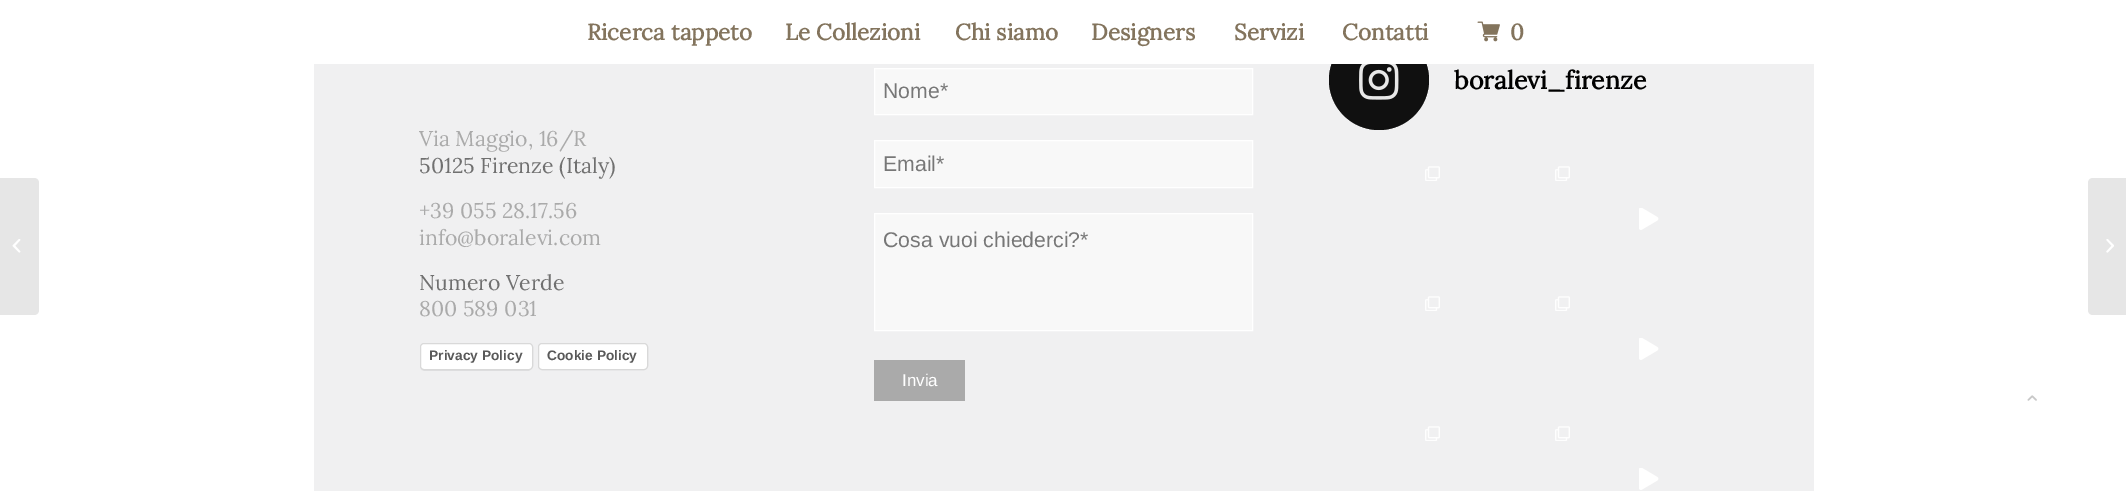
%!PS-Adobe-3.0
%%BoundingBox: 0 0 2126 491
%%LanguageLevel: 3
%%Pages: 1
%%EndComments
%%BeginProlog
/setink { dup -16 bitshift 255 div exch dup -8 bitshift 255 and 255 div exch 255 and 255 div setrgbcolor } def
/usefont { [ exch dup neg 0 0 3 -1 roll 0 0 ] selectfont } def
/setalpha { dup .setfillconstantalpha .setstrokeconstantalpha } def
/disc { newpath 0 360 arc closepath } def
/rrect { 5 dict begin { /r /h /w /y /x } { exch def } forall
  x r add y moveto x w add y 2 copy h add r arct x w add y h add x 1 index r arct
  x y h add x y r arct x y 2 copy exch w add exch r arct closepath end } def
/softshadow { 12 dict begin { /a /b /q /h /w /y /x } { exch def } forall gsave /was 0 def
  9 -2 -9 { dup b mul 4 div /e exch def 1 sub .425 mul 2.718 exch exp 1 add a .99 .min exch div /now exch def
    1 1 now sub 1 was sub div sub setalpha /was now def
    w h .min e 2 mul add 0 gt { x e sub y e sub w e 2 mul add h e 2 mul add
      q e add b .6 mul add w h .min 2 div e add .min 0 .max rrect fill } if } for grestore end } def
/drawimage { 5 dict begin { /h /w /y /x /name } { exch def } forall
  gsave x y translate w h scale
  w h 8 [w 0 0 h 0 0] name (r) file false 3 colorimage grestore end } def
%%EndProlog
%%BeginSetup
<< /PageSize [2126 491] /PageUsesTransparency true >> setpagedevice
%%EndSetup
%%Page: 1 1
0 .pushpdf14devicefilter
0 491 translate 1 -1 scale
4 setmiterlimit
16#FFFFFF setink
0 0 2126 491 rectfill
16#F0F0F1 setink
314 64 1500 427 rectfill
16#333333 setink
1379 80 50 disc fill
0.68 setalpha
16#000000 setink
1379 80 50 disc fill
1 setalpha
16#FFFFFF setink
1331 30 96 34 rectfill
/Lora-Bold 22.5 usefont
16#83745D setink
[
    [(Ricerca tappeto) 587 40]
    [(Le Collezioni) 785 40]
    [(Chi siamo) 955 40]
    [(Designers) 1091 40]
    [(Servizi) 1234 40]
    [(Contatti) 1342 40]
] { aload pop moveto show } forall
(img1.raw) 1477 21 23 21 drawimage
1510 40 moveto (0) show
16#E6E6E6 setink
0 178 moveto 34 178 lineto 37 178 39 180 39 183 curveto 39 310 lineto 39 313 37 315 34 315 curveto 0 315 lineto closepath fill
(img2.raw) 12 239 9 14 drawimage
/Lora-Regular 21.25 usefont
16#AAAAAA setink
419 146 moveto (Via Maggio, 16/R) show
16#707070 setink
419 173 moveto (50125 Firenze \(Italy\)) show
16#AAAAAA setink
419 218 moveto (+39 055 28.17.56) show
419 245 moveto (info@boralevi.com) show
16#707070 setink
419 290 moveto (Numero Verde) show
16#AAAAAA setink
419 316 moveto (800 589 031) show
16#000000 setink
421 345 110 25 2.5 0.5 0.15 softshadow
16#FFFFFF setink
420 343 113 27 4 rrect fill
0.15 setalpha
16#000000 setink
420.5 343.5 112 26 3.5 rrect stroke
/LiberationSans-Bold 13.75 usefont
1 setalpha
16#595959 setink
429 360 moveto (Privacy Policy) show
16#FFFFFF setink
538 343 110 27 4 rrect fill
0.15 setalpha
16#000000 setink
538.5 343.5 109 26 3.5 rrect stroke
1 setalpha
16#595959 setink
547 360 moveto (Cookie Policy) show
16#F8F8F8 setink
874.5 68.5 moveto 1252.5 68.5 lineto 1252.5 114.5 lineto 874.5 114.5 lineto closepath gsave fill grestore
16#FFFFFF setink
stroke
/LiberationSans-Regular 21.25 usefont
16#777777 setink
883 98 moveto (Nome*) show
16#F8F8F8 setink
874.5 140.5 moveto 1252.5 140.5 lineto 1252.5 187.5 lineto 874.5 187.5 lineto closepath gsave fill grestore
16#FFFFFF setink
stroke
16#777777 setink
883 171 moveto (Email*) show
16#F8F8F8 setink
874.5 213.5 moveto 1252.5 213.5 lineto 1252.5 330.5 lineto 874.5 330.5 lineto closepath gsave fill grestore
16#FFFFFF setink
stroke
16#777777 setink
883 247 moveto (Cosa vuoi chiederci?*) show
16#AAAAAA setink
874 360 91 41 rectfill
/LiberationSans-Regular 17 usefont
16#FFFFFF setink
902 386 moveto (Invia) show
(img3.raw) 1359 64 40 36 drawimage
/Lora-Bold 25 usefont
16#000000 setink
1454 89 moveto (boralevi_firenze) show
(img4.raw) 1425 166 15 15 drawimage
(img4.raw) 1555 166 15 15 drawimage
(img5.raw) 1639 208 20 22 drawimage
(img4.raw) 1425 296 15 15 drawimage
(img4.raw) 1555 296 15 15 drawimage
(img5.raw) 1639 338 20 22 drawimage
(img4.raw) 1425 426 15 15 drawimage
(img4.raw) 1555 426 15 15 drawimage
(img5.raw) 1639 468 20 22 drawimage
16#E6E6E6 setink
2093 178 moveto 2126 178 lineto 2126 315 lineto 2093 315 lineto 2090 315 2088 313 2088 310 curveto 2088 183 lineto 2088 180 2090 178 2093 178 curveto closepath fill
(img6.raw) 2106 239 8 14 drawimage
(img7.raw) 2027 395 10 6 drawimage
.poppdf14devicefilter showpage
%%EOF
